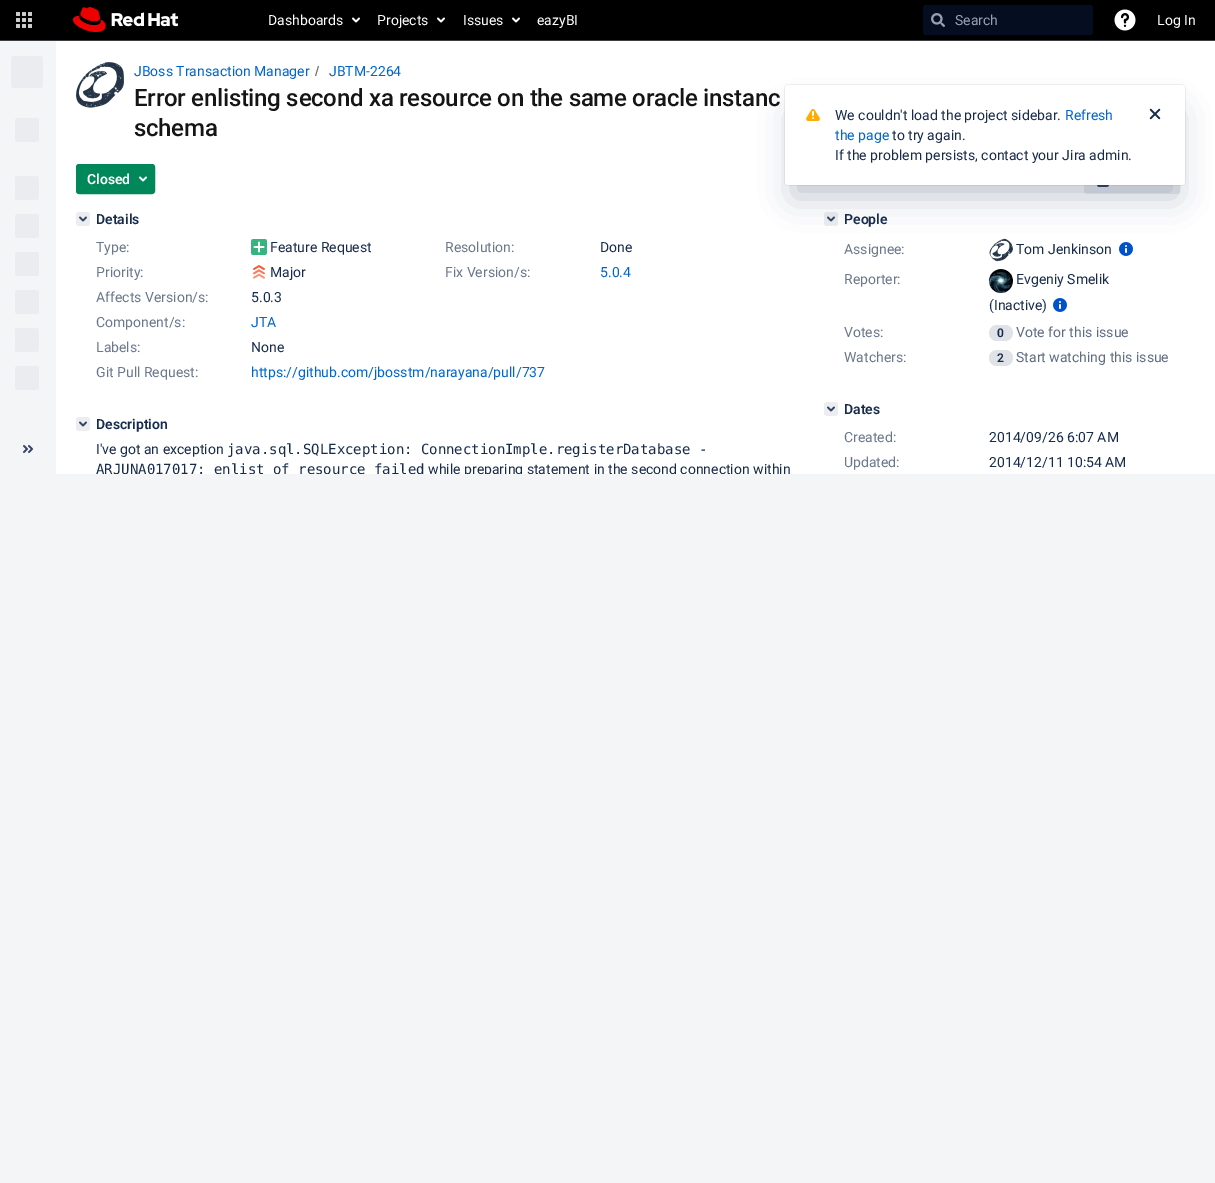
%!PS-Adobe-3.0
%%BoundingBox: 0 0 1215 1183
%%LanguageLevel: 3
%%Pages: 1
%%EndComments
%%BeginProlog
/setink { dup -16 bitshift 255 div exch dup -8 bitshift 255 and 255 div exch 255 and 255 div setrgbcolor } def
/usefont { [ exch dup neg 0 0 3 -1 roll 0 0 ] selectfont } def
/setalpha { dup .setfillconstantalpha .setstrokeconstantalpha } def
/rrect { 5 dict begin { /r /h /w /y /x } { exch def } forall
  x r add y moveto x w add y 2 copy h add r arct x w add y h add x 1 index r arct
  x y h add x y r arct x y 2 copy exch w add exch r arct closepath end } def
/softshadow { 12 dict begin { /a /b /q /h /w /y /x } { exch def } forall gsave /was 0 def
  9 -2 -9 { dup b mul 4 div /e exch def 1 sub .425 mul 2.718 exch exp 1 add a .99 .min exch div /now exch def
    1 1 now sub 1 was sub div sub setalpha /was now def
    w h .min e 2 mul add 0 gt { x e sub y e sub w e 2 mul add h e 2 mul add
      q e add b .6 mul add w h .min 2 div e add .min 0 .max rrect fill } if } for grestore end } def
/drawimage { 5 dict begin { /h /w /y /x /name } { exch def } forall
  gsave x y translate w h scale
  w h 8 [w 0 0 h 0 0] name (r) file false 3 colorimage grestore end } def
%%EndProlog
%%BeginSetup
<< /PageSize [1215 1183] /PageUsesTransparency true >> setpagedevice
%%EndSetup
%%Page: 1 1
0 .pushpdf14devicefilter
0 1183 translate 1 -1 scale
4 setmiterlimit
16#F4F5F7 setink
0 0 1215 1183 rectfill
16#000000 setink
0 0 1215 40 rectfill
16#3C3F42 setink
0 40 1215 1 rectfill
(img1.raw) 16 12 16 16 drawimage
(img2.raw) 73 7 105 25 drawimage
/Roboto-Regular 14 usefont
16#FFFFFF setink
268 25 moveto (Dashboards) show
(img3.raw) 352 17 8 6 drawimage
377 25 moveto (Projects) show
(img3.raw) 437 17 8 6 drawimage
463 25 moveto (Issues) show
(img3.raw) 512 17 8 6 drawimage
537 25 moveto (eazyBI) show
16#040E20 setink
923 5 170 30 3 rrect fill
(img4.raw) 931 13 14 14 drawimage
16#97A0AF setink
955 25 moveto (Search) show
(img5.raw) 1114 9 22 22 drawimage
16#FFFFFF setink
1157 25 moveto (Log In) show
16#EBECF0 setink
11 56 32 32 3 rrect fill
15 118 24 24 3 rrect fill
15 176 24 24 3 rrect fill
15 214 24 24 3 rrect fill
15 252 24 24 3 rrect fill
15 290 24 24 3 rrect fill
15 328 24 24 3 rrect fill
15 366 24 24 3 rrect fill
(img6.raw) 23 445 10 8 drawimage
16#FFFFFF setink
56 41 1159 433 rectfill
(img7.raw) 76 62 48 46 drawimage
16#0066CC setink
134 76 moveto (JBoss Transaction Manager) show
16#707070 setink
316 76 moveto 319 66 lineto 318 66 lineto 315 76 lineto closepath fill
16#0066CC setink
329 76 moveto (JBTM-2264) show
/Roboto-Medium 24 usefont
16#151515 setink
134 106 moveto -0.25 0 (Error enlisting second xa resource on the same oracle instanc) ashow
134 136 moveto -0.25 0 (schema) ashow
16#00875A setink
76.5 164.5 78 29 2.5 rrect gsave fill grestore
stroke
/Roboto-SemiBold 14 usefont
16#FFFFFF setink
87 184 moveto (Closed) show
(img8.raw) 139 176 8 6 drawimage
16#EBEDF0 setink
1084 164 96 30 3 rrect fill
(img9.raw) 1097 185 12 2 drawimage
76 212 14 14 3 rrect fill
(img10.raw) 79 216 8 6 drawimage
16#172B4D setink
96 224 moveto (Details) show
/Roboto-Regular 14 usefont
16#6B778C setink
96 252 moveto (Type:) show
(img11.raw) 251 239 16 16 drawimage
16#172B4D setink
270 252 moveto (Feature Request) show
16#6B778C setink
445 252 moveto (Resolution:) show
16#172B4D setink
600 252 moveto (Done) show
16#6B778C setink
96 277 moveto (Priority:) show
(img12.raw) 253 265 12 14 drawimage
16#172B4D setink
270 277 moveto (Major) show
16#6B778C setink
445 277 moveto (Fix Version/s:) show
16#0066CC setink
600 277 moveto (5.0.4) show
16#6B778C setink
96 302 moveto (Affects Version/s:) show
16#172B4D setink
251 302 moveto (5.0.3) show
16#6B778C setink
96 327 moveto (Component/s:) show
16#0066CC setink
251 327 moveto (JTA) show
16#6B778C setink
96 352 moveto (Labels:) show
16#172B4D setink
251 352 moveto (None) show
16#6B778C setink
96 377 moveto (Git Pull Request:) show
16#0066CC setink
251 377 moveto (https://github.com/jbosstm/narayana/pull/737) show
16#EBEDF0 setink
76 417 14 14 3 rrect fill
(img10.raw) 79 421 8 6 drawimage
/Roboto-SemiBold 14 usefont
16#172B4D setink
96 429 moveto (Description) show
/Roboto-Regular 14 usefont
96 454 moveto (I've got an exception) show
/DejaVuSansMono-Regular 14 usefont
227 454 moveto (java.sql.SQLException: ConnectionImple.registerDatabase -) show
gsave
96 439 698 35 rectclip
96 474 moveto (ARJUNA017017: enlist of resource failed) show
/Roboto-Regular 14 usefont
428 474 moveto (while preparing statement in the second connection within) show
grestore
16#EBEDF0 setink
824 212 14 14 3 rrect fill
(img10.raw) 827 216 8 6 drawimage
/Roboto-SemiBold 14 usefont
16#172B4D setink
844 224 moveto (People) show
/Roboto-Regular 14 usefont
16#6B778C setink
844 254 moveto (Assignee:) show
(img13.raw) 989 238 24 24 drawimage
16#172B4D setink
1016 254 moveto (Tom Jenkinson) show
(img14.raw) 1119 242 14 14 drawimage
16#6B778C setink
844 284 moveto (Reporter:) show
(img15.raw) 989 269 24 24 drawimage
16#172B4D setink
1016 284 moveto (Evgeniy Smelik) show
989 310 moveto (\(Inactive\)) show
(img14.raw) 1053 298 14 14 drawimage
16#6B778C setink
844 337 moveto (Votes:) show
16#DFE2E6 setink
989 325 24 16 8 rrect fill
/Roboto-SemiBold 12 usefont
16#172B4D setink
997 337 moveto (0) show
/Roboto-Regular 14 usefont
16#5E6C84 setink
1016 337 moveto (Vote for this issue) show
16#6B778C setink
844 362 moveto (Watchers:) show
16#DFE2E6 setink
989 350 24 16 8 rrect fill
/Roboto-SemiBold 12 usefont
16#172B4D setink
997 362 moveto (2) show
/Roboto-Regular 14 usefont
16#5E6C84 setink
1016 362 moveto (Start watching this issue) show
16#EBEDF0 setink
824 402 14 14 3 rrect fill
(img10.raw) 827 406 8 6 drawimage
/Roboto-SemiBold 14 usefont
16#172B4D setink
844 414 moveto (Dates) show
/Roboto-Regular 14 usefont
16#6B778C setink
844 442 moveto (Created:) show
16#172B4D setink
989 442 moveto (2014/09/26 6:07 AM) show
16#6B778C setink
844 467 moveto (Updated:) show
16#172B4D setink
989 467 moveto (2014/12/11 10:54 AM) show
16#091E42 setink
785 85 400 100 3 0.5 0.25 softshadow
793 113 384 84 0 16 0.25 softshadow
16#FFFFFF setink
785 85 400 100 3 rrect fill
(img16.raw) 806 109 14 12 drawimage
16#172B4D setink
835 120 moveto (We couldn't load the project sidebar.) show
16#0066CC setink
1065 120 moveto (Refresh) show
(img17.raw) 1149 108 12 12 drawimage
835 140 moveto (the page) show
16#172B4D setink
892 140 moveto (to try again.) show
835 160 moveto (If the problem persists, contact your Jira admin.) show
.poppdf14devicefilter showpage
%%EOF
